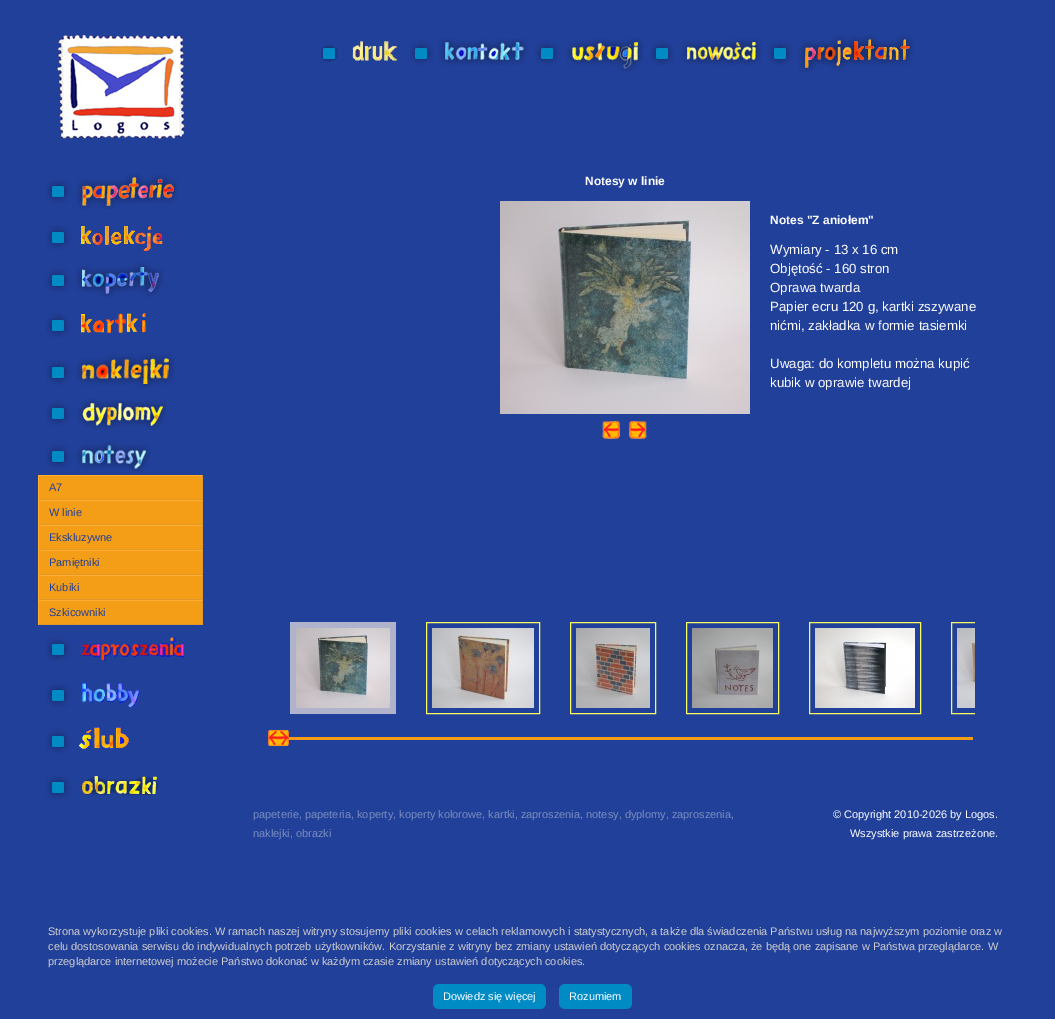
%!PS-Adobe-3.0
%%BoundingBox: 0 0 1055 1019
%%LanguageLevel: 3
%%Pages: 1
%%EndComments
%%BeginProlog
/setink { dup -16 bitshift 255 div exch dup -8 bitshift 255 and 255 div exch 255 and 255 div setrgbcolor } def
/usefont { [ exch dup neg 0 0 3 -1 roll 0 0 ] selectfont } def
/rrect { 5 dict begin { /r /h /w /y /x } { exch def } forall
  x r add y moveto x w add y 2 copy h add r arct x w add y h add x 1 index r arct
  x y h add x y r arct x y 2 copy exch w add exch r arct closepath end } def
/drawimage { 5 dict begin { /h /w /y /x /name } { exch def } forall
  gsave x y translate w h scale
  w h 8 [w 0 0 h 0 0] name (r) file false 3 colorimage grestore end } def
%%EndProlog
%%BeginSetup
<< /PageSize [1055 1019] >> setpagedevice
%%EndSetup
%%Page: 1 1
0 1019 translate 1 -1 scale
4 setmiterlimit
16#21409A setink
0 0 1055 1019 rectfill
(img1.raw) 56 35 129 105 drawimage
(img2.raw) 46 173 133 37 drawimage
(img3.raw) 46 225 117 27 drawimage
(img4.raw) 44 262 120 36 drawimage
(img5.raw) 44 313 103 25 drawimage
(img6.raw) 46 353 129 36 drawimage
(img7.raw) 46 399 121 31 drawimage
(img8.raw) 46 441 105 32 drawimage
[
    [38 475 165 1 16#FFAE2F]
    [202 475 1 25 16#DF9829]
    [38 499 165 1 16#DF9829]
    [38 475 1 25 16#FFAE2F]
    [39 476 163 23 16#F49E17]
] { aload pop setink rectfill } forall
/LiberationSans-Regular 11 usefont
16#21409A setink
49 491 moveto (A7) show
[
    [38 500 165 1 16#FFAE2F]
    [202 500 1 25 16#DF9829]
    [38 524 165 1 16#DF9829]
    [38 500 1 25 16#FFAE2F]
    [39 501 163 23 16#F49E17]
] { aload pop setink rectfill } forall
16#21409A setink
49 516 moveto (W linie) show
[
    [38 525 165 1 16#FFAE2F]
    [202 525 1 25 16#DF9829]
    [38 549 165 1 16#DF9829]
    [38 525 1 25 16#FFAE2F]
    [39 526 163 23 16#F49E17]
] { aload pop setink rectfill } forall
16#21409A setink
49 541 moveto (Ekskluzywne) show
[
    [38 550 165 1 16#FFAE2F]
    [202 550 1 25 16#DF9829]
    [38 574 165 1 16#DF9829]
    [38 550 1 25 16#FFAE2F]
    [39 551 163 23 16#F49E17]
] { aload pop setink rectfill } forall
16#21409A setink
49 566 moveto (Pamiętniki) show
[
    [38 575 165 1 16#FFAE2F]
    [202 575 1 25 16#DF9829]
    [38 599 165 1 16#DF9829]
    [38 575 1 25 16#FFAE2F]
    [39 576 163 23 16#F49E17]
] { aload pop setink rectfill } forall
16#21409A setink
49 591 moveto (Kubiki) show
[
    [38 600 165 1 16#FFAE2F]
    [202 600 1 25 16#DF9829]
    [38 624 165 1 16#DF9829]
    [38 600 1 25 16#FFAE2F]
    [39 601 163 23 16#F49E17]
] { aload pop setink rectfill } forall
16#21409A setink
49 616 moveto (Szkicowniki) show
(img9.raw) 46 628 139 43 drawimage
(img10.raw) 46 683 94 25 drawimage
(img11.raw) 45 727 84 27 drawimage
(img12.raw) 45 776 114 24 drawimage
(img13.raw) 321 41 76 21 drawimage
(img14.raw) 410 38 118 28 drawimage
(img15.raw) 535 37 109 36 drawimage
(img16.raw) 650 37 112 28 drawimage
(img17.raw) 768 35 147 38 drawimage
/LiberationSans-Bold 12 usefont
16#FFFFFF setink
585 185 moveto (Notesy w linie) show
(img18.raw) 500 201 250 213 drawimage
(img19.raw) 602 421 18 18 drawimage
(img20.raw) 629 421 18 18 drawimage
770 224 moveto (Notes "Z aniołem") show
/LiberationSans-Regular 13.3 usefont
[
    [(Wymiary - 13 x 16 cm) 770 254]
    [(Objętość - 160 stron) 770 273]
    [(Oprawa twarda) 770 292]
    [(Papier ecru 120 g, kartki zszywane) 770 311]
    [(nićmi, zakładka w formie tasiemki) 770 330]
    [(Uwaga: do kompletu można kupić) 770 368]
    [(kubik w oprawie twardej) 770 387]
] { aload pop moveto show } forall
16#AFB3CC setink
290 622 106 92 rectfill
(img21.raw) 296 628 94 80 drawimage
16#FBFA63 setink
426.5 622.5 113 91 rectstroke
(img22.raw) 432 628 102 80 drawimage
570.5 622.5 85 91 rectstroke
(img23.raw) 576 628 74 80 drawimage
686.5 622.5 92 91 rectstroke
(img24.raw) 692 628 81 80 drawimage
809.5 622.5 111 91 rectstroke
(img25.raw) 815 628 100 80 drawimage
gsave
275 622 700 96 rectclip
951.5 622.5 74 91 rectstroke
grestore
(img26.raw) 957 628 18 80 drawimage
16#F49E17 setink
289 737 684 3 rectfill
(img27.raw) 268 730 21 16 drawimage
/LiberationSans-Regular 11 usefont
16#7A8DBE setink
253 818 moveto (papeterie, papeteria, koperty, koperty kolorowe, kartki, zaproszenia, notesy, dyplomy, zaproszenia,) show
253 837 moveto (naklejki, obrazki) show
16#FFFFFF setink
833 818 moveto (© Copyright 2010-2026 by Logos.) show
850 837 moveto (Wszystkie prawa zastrzeżone.) show
16#CECECE setink
[
    [(Strona wykorzystuje pliki cookies. W ramach naszej witryny stosujemy pliki cookies w celach reklamowych i statystycznych, a także dla świadczenia Państwu usług na najwyższym poziomie oraz w) 48 935]
    [(celu dostosowania serwisu do indywidualnych potrzeb użytkowników. Korzystanie z witryny bez zmiany ustawień dotyczących cookies oznacza, że będą one zapisane w Państwa przeglądarce. W) 48 950]
    [(przeglądarce internetowej możecie Państwo dokonać w każdym czasie zmiany ustawień dotyczących cookies.) 48 965]
] { aload pop moveto show } forall
16#008BC5 setink
433 984 113 25 6 rrect fill
16#FFFFFF setink
443 1000 moveto (Dowiedz się więcej) show
16#008BC5 setink
559 984 73 25 6 rrect fill
16#FFFFFF setink
569 1000 moveto (Rozumiem) show
showpage
%%EOF
